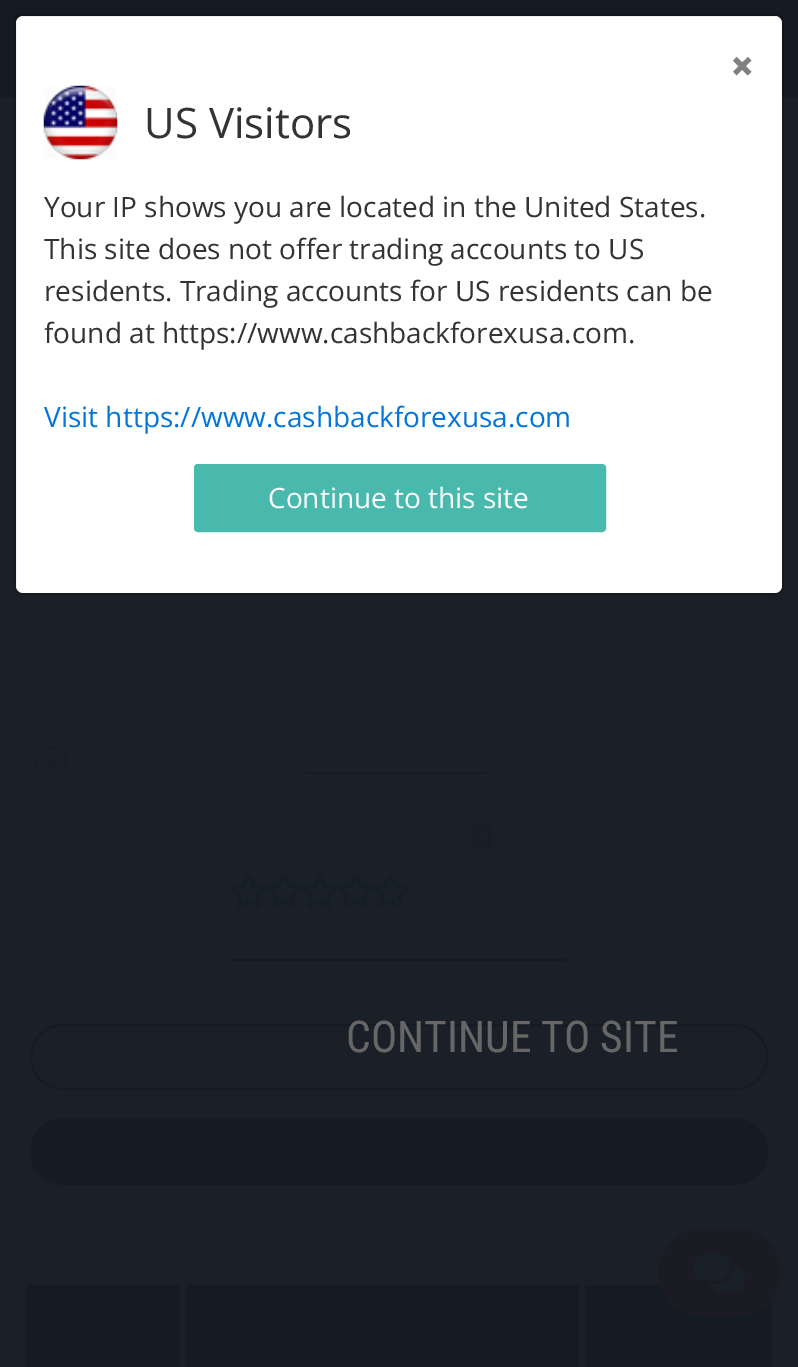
%!PS-Adobe-3.0
%%BoundingBox: 0 0 798 1367
%%LanguageLevel: 3
%%Pages: 1
%%EndComments
%%BeginProlog
/setink { dup -16 bitshift 255 div exch dup -8 bitshift 255 and 255 div exch 255 and 255 div setrgbcolor } def
/usefont { [ exch dup neg 0 0 3 -1 roll 0 0 ] selectfont } def
/setalpha { dup .setfillconstantalpha .setstrokeconstantalpha } def
/rrect { 5 dict begin { /r /h /w /y /x } { exch def } forall
  x r add y moveto x w add y 2 copy h add r arct x w add y h add x 1 index r arct
  x y h add x y r arct x y 2 copy exch w add exch r arct closepath end } def
/drawimage { 5 dict begin { /h /w /y /x /name } { exch def } forall
  gsave x y translate w h scale
  w h 8 [w 0 0 h 0 0] name (r) file false 3 colorimage grestore end } def
%%EndProlog
%%BeginSetup
<< /PageSize [798 1367] /PageUsesTransparency true >> setpagedevice
%%EndSetup
%%Page: 1 1
0 .pushpdf14devicefilter
0 1367 translate 1 -1 scale
4 setmiterlimit
16#1B2028 setink
0 0 798 1367 rectfill
gsave 0 0 moveto 798 0 lineto 798 96 lineto 0 96 lineto closepath clip newpath
<< /ShadingType 2 /ColorSpace /DeviceRGB /Coords [79 -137 719 233] /Extend [true true] /Function << /FunctionType 3 /Domain [0 1] /Functions [<< /FunctionType 2 /Domain [0 1] /C0 [0.082 0.102 0.133] /C1 [0.082 0.102 0.133] /N 1 >> << /FunctionType 2 /Domain [0 1] /C0 [0.082 0.102 0.133] /C1 [0.082 0.106 0.137] /N 1 >> << /FunctionType 2 /Domain [0 1] /C0 [0.082 0.106 0.137] /C1 [0.082 0.106 0.137] /N 1 >>] /Bounds [0.2 0.45] /Encode [0 1 0 1 0 1] >> >> shfill grestore
gsave 0 96 moveto 798 96 lineto 798 98 lineto 0 98 lineto closepath clip newpath
<< /ShadingType 2 /ColorSpace /DeviceRGB /Coords [79 -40 719 329] /Extend [true true] /Function << /FunctionType 3 /Domain [0 1] /Functions [<< /FunctionType 2 /Domain [0 1] /C0 [0.086 0.11 0.141] /C1 [0.086 0.11 0.141] /N 1 >> << /FunctionType 2 /Domain [0 1] /C0 [0.086 0.11 0.141] /C1 [0.09 0.11 0.141] /N 1 >> << /FunctionType 2 /Domain [0 1] /C0 [0.09 0.11 0.141] /C1 [0.09 0.11 0.141] /N 1 >>] /Bounds [0.2 0.45] /Encode [0 1 0 1 0 1] >> >> shfill grestore
16#FFFFFF setink
16 16 766 577 7 rrect fill
0.2 setalpha
16#000000 setink
2 setlinewidth
15 15 768 579 8 rrect stroke
/OpenSans-ExtraBold 42 usefont
1 setalpha
16#808080 setink
730 81 moveto (×) show
(img1.raw) 43 85 75 75 drawimage
/OpenSans-Regular 42 usefont
16#333333 setink
144 138 moveto (US Visitors) show
/OpenSans-Regular 28 usefont
[
    [(Your IP shows you are located in the United States.) 44 217]
    [(This site does not offer trading accounts to US) 44 259]
    [(residents. Trading accounts for US residents can be) 44 301]
    [(found at https://www.cashbackforexusa.com.) 44 343]
] { aload pop moveto show } forall
16#0275D8 setink
44 427 moveto (Visit https://www.cashbackforexusa.com) show
16#49B9AD setink
196 466 408 64 2 rrect gsave fill grestore
4 setlinewidth
stroke
16#FFFFFF setink
268 508 moveto (Continue to this site) show
(img2.raw) 33 745 35 36 drawimage
16#141B23 setink
305 772 182 2 rectfill
(img3.raw) 472 825 22 23 drawimage
(img4.raw) 231 874 178 35 drawimage
231 959 336 2 rectfill
2 setlinewidth
31 1025 736 64 32 rrect stroke
30 1118 738 67 33.5 rrect fill
gsave 26 1285 moveto 180 1285 lineto 180 1367 lineto 26 1367 lineto closepath clip newpath
<< /ShadingType 2 /ColorSpace /DeviceRGB /Coords [103 1285 103 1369] /Extend [true true] /Function << /FunctionType 2 /Domain [0 1] /C0 [0.078 0.106 0.137] /C1 [0.082 0.11 0.141] /N 1 >> >> shfill grestore
gsave 186 1285 moveto 579 1285 lineto 579 1367 lineto 186 1367 lineto closepath clip newpath
<< /ShadingType 2 /ColorSpace /DeviceRGB /Coords [382 1285 382 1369] /Extend [true true] /Function << /FunctionType 2 /Domain [0 1] /C0 [0.078 0.106 0.137] /C1 [0.082 0.11 0.141] /N 1 >> >> shfill grestore
gsave 585 1285 moveto 772 1285 lineto 772 1367 lineto 585 1367 lineto closepath clip newpath
<< /ShadingType 2 /ColorSpace /DeviceRGB /Coords [760 1285 760 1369] /Extend [true true] /Function << /FunctionType 2 /Domain [0 1] /C0 [0.078 0.106 0.137] /C1 [0.082 0.11 0.141] /N 1 >> >> shfill grestore
/RobotoCondensed-Regular 43.75 usefont
16#666666 setink
346 1052 moveto (CONTINUE TO SITE) show
16#1A1B23 setink
658 1229 123 87 43.5 rrect fill
(img5.raw) 693 1251 53 42 drawimage
.poppdf14devicefilter showpage
%%EOF
